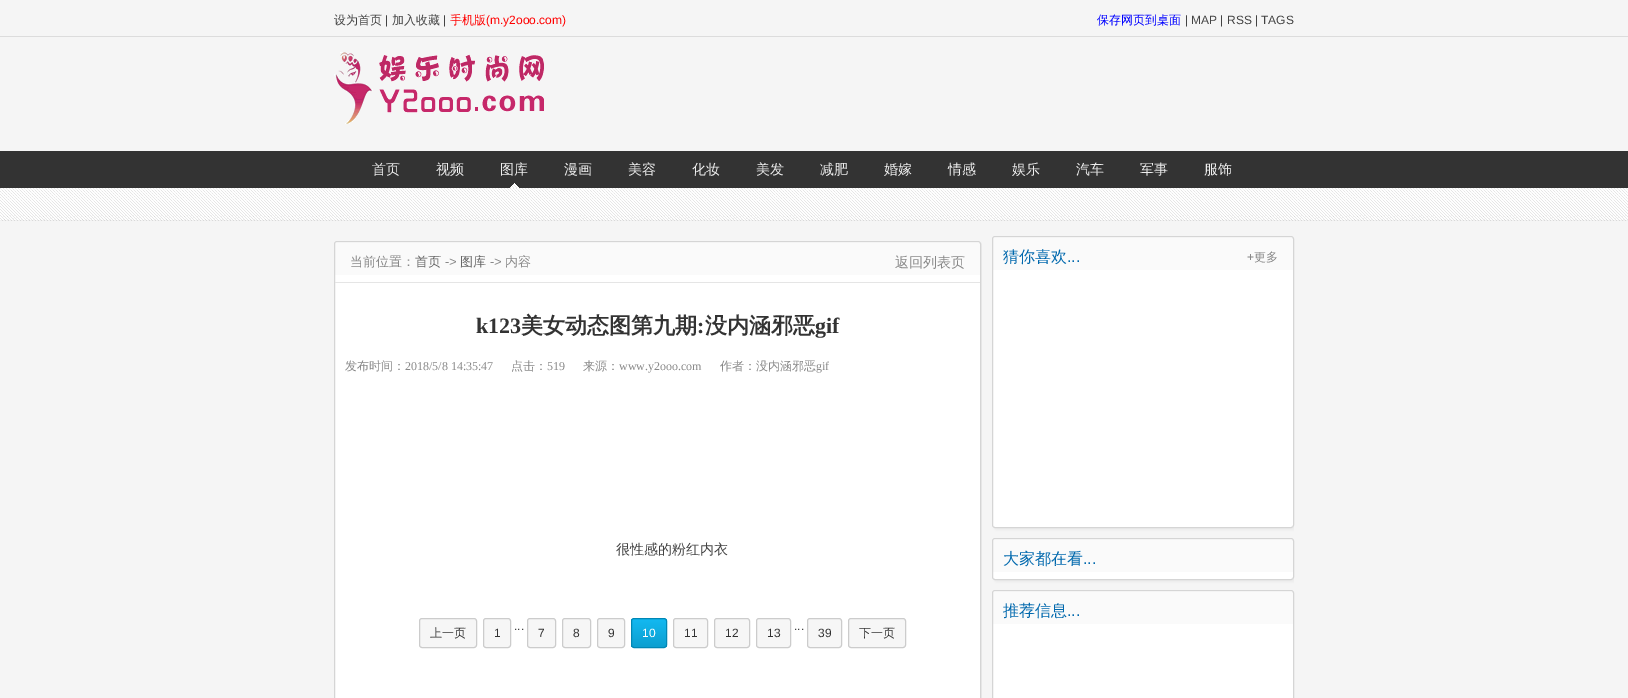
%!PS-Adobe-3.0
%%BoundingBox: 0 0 1628 698
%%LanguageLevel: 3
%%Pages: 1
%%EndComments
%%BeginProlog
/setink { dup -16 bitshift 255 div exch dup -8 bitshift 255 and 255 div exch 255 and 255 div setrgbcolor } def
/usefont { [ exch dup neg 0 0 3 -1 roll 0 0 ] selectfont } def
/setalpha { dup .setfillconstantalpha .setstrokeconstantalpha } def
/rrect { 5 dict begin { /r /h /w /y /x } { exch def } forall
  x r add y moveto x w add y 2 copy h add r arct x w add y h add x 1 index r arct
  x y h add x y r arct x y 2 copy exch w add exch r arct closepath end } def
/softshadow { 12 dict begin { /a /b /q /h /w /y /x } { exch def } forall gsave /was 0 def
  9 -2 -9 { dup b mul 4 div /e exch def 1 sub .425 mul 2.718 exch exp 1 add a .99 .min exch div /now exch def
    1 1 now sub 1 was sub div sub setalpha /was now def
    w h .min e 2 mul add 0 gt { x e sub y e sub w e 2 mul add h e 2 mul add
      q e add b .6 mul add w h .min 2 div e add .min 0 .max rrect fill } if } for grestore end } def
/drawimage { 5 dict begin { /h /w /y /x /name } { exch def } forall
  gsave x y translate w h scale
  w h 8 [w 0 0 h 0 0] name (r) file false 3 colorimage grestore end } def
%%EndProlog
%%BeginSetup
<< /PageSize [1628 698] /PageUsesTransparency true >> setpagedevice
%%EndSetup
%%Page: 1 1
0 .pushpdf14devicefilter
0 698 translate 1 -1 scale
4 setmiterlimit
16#F5F5F5 setink
0 0 1628 698 rectfill
16#DCDCDC setink
0 36 1628 1 rectfill
/WenQuanYiZenHei-Medium 12 usefont
16#434343 setink
334 24 moveto (设为首页) show
/LiberationSans-Regular 12 usefont
385 24 moveto (|) show
/WenQuanYiZenHei-Medium 12 usefont
392 24 moveto (加入收藏) show
/LiberationSans-Regular 12 usefont
443 24 moveto (|) show
/WenQuanYiZenHei-Medium 12 usefont
16#FF0000 setink
450 24 moveto (手机版) show
/LiberationSans-Regular 12 usefont
486 24 moveto (\(m.y2ooo.com\)) show
/WenQuanYiZenHei-Medium 12 usefont
16#0000FF setink
1097 24 moveto (保存网页到桌面) show
/LiberationSans-Regular 12 usefont
16#434343 setink
[
    [(|) 1185 24]
    [(MAP) 1191 24]
    [(|) 1220 24]
    [(RSS) 1227 24]
    [(|) 1255 24]
    [(TAGS) 1261 24]
] { aload pop moveto show } forall
(img1.raw) 334 52 210 72 drawimage
(img2.raw) 0 151 1628 70 drawimage
/WenQuanYiZenHei-Medium 14 usefont
16#EEEEEE setink
372 174 moveto (首页) show
436 174 moveto (视频) show
(img3.raw) 510 183 9 5 drawimage
[
    [(图库) 500 174]
    [(漫画) 564 174]
    [(美容) 628 174]
    [(化妆) 692 174]
    [(美发) 756 174]
    [(减肥) 820 174]
    [(婚嫁) 884 174]
    [(情感) 948 174]
    [(娱乐) 1012 174]
    [(汽车) 1076 174]
    [(军事) 1140 174]
    [(服饰) 1204 174]
] { aload pop moveto show } forall
gsave
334 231 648 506 rectclip
16#EAEAEA setink
336 243 647 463 3 1.5 1 softshadow
grestore
16#FFFFFF setink
334 241 647 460 3 rrect fill
16#FAFAFA setink
334 243 647 32 rectfill
16#D5D5D5 setink
334.5 241.5 646 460 2.5 rrect stroke
16#E5E5E5 setink
335 282 645 1 rectfill
/WenQuanYiZenHei-Medium 13 usefont
16#888888 setink
350 266 moveto (当前位置：) show
16#666666 setink
415 266 moveto (首页) show
/LiberationSans-Regular 13 usefont
16#888888 setink
445 266 moveto (->) show
/WenQuanYiZenHei-Medium 13 usefont
16#666666 setink
460 266 moveto (图库) show
/LiberationSans-Regular 13 usefont
16#888888 setink
490 266 moveto (->) show
/WenQuanYiZenHei-Medium 13 usefont
505 266 moveto (内容) show
/WenQuanYiZenHei-Medium 14 usefont
895 267 moveto (返回列表页) show
/LiberationSerif-Bold 22 usefont
16#333333 setink
476 333 moveto (k123) show
/WenQuanYiZenHei-Bold 22 usefont
521 333 moveto (美女动态图第九期) show
/LiberationSerif-Bold 22 usefont
697 333 moveto (:) show
/WenQuanYiZenHei-Bold 22 usefont
705 333 moveto (没内涵邪恶) show
/LiberationSerif-Bold 22 usefont
815 333 moveto (gif) show
/WenQuanYiZenHei-Medium 12 usefont
16#888888 setink
345 370 moveto (发布时间：) show
/LiberationSerif-Regular 12 usefont
405 370 moveto (2018/5/8 14:35:47) show
/WenQuanYiZenHei-Medium 12 usefont
511 370 moveto (点击：) show
/LiberationSerif-Regular 12 usefont
547 370 moveto (519) show
/WenQuanYiZenHei-Medium 12 usefont
583 370 moveto (来源：) show
/LiberationSerif-Regular 12 usefont
619 370 moveto (www.y2ooo.com) show
/WenQuanYiZenHei-Medium 12 usefont
720 370 moveto (作者：没内涵邪恶) show
/LiberationSerif-Regular 12 usefont
816 370 moveto (gif) show
/WenQuanYiZenHei-Medium 14 usefont
16#434343 setink
616 554 moveto (很性感的粉红内衣) show
16#F6F6F6 setink
419.5 618.5 57 29 2.5 rrect gsave fill grestore
16#CCCCCC setink
stroke
/WenQuanYiZenHei-Medium 12 usefont
16#333333 setink
430 637 moveto (上一页) show
16#F6F6F6 setink
483.5 618.5 27 29 2.5 rrect gsave fill grestore
16#CCCCCC setink
stroke
/LiberationSans-Regular 12 usefont
16#333333 setink
494 637 moveto (1) show
16#434343 setink
514 630 moveto (...) show
16#F6F6F6 setink
527.5 618.5 28 29 2.5 rrect gsave fill grestore
16#CCCCCC setink
stroke
16#333333 setink
538 637 moveto (7) show
16#F6F6F6 setink
562.5 618.5 28 29 2.5 rrect gsave fill grestore
16#CCCCCC setink
stroke
16#333333 setink
573 637 moveto (8) show
16#F6F6F6 setink
597.5 618.5 27 29 2.5 rrect gsave fill grestore
16#CCCCCC setink
stroke
16#333333 setink
608 637 moveto (9) show
gsave
631 618 36 30 3 rrect clip newpath
gsave 631 619 moveto 667 619 lineto 667 647 lineto 631 647 lineto closepath clip newpath
<< /ShadingType 2 /ColorSpace /DeviceRGB /Coords [632 619 632 647] /Extend [true true] /Function << /FunctionType 2 /Domain [0 1] /C0 [0.075 0.725 0.945] /C1 [0.047 0.624 0.816] /N 1 >> >> shfill grestore
grestore
16#0087B5 setink
631.5 618.5 35 29 2.5 rrect stroke
16#FFFFFF setink
642 637 moveto (10) show
16#F6F6F6 setink
673.5 618.5 34 29 2.5 rrect gsave fill grestore
16#CCCCCC setink
stroke
16#333333 setink
684 637 moveto (11) show
16#F6F6F6 setink
714.5 618.5 35 29 2.5 rrect gsave fill grestore
16#CCCCCC setink
stroke
16#333333 setink
725 637 moveto (12) show
16#F6F6F6 setink
756.5 618.5 34 29 2.5 rrect gsave fill grestore
16#CCCCCC setink
stroke
16#333333 setink
767 637 moveto (13) show
16#434343 setink
794 630 moveto (...) show
16#F6F6F6 setink
807.5 618.5 34 29 2.5 rrect gsave fill grestore
16#CCCCCC setink
stroke
16#333333 setink
818 637 moveto (39) show
16#F6F6F6 setink
848.5 618.5 57 29 2.5 rrect gsave fill grestore
16#CCCCCC setink
stroke
/WenQuanYiZenHei-Medium 12 usefont
16#333333 setink
859 637 moveto (下一页) show
gsave
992 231 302 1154 rectclip
16#EAEAEA setink
994 238 302 292 3 1.5 1 softshadow
grestore
16#FFFFFF setink
992 236 302 292 3 rrect fill
16#FAFAFA setink
992 238 302 32 rectfill
16#D5D5D5 setink
992.5 236.5 301 291 2.5 rrect stroke
/WenQuanYiZenHei-Medium 16 usefont
16#0068AD setink
1003 262 moveto (猜你喜欢) show
/LiberationSans-Regular 16 usefont
1067 262 moveto (...) show
/LiberationSans-Regular 12 usefont
16#888888 setink
1247 261 moveto (+) show
/WenQuanYiZenHei-Medium 12 usefont
1254 261 moveto (更多) show
gsave
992 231 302 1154 rectclip
16#EAEAEA setink
994 540 302 42 3 1.5 1 softshadow
grestore
16#FFFFFF setink
992 538 302 42 3 rrect fill
16#FAFAFA setink
992 540 302 32 rectfill
16#D5D5D5 setink
992.5 538.5 301 41 2.5 rrect stroke
/WenQuanYiZenHei-Medium 16 usefont
16#0068AD setink
1003 564 moveto (大家都在看) show
/LiberationSans-Regular 16 usefont
1083 564 moveto (...) show
16#FFFFFF setink
992 590 302 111 3 rrect fill
16#FAFAFA setink
992 592 302 32 rectfill
16#D5D5D5 setink
992.5 590.5 301 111 2.5 rrect stroke
/WenQuanYiZenHei-Medium 16 usefont
16#0068AD setink
1003 616 moveto (推荐信息) show
/LiberationSans-Regular 16 usefont
1067 616 moveto (...) show
.poppdf14devicefilter showpage
%%EOF
